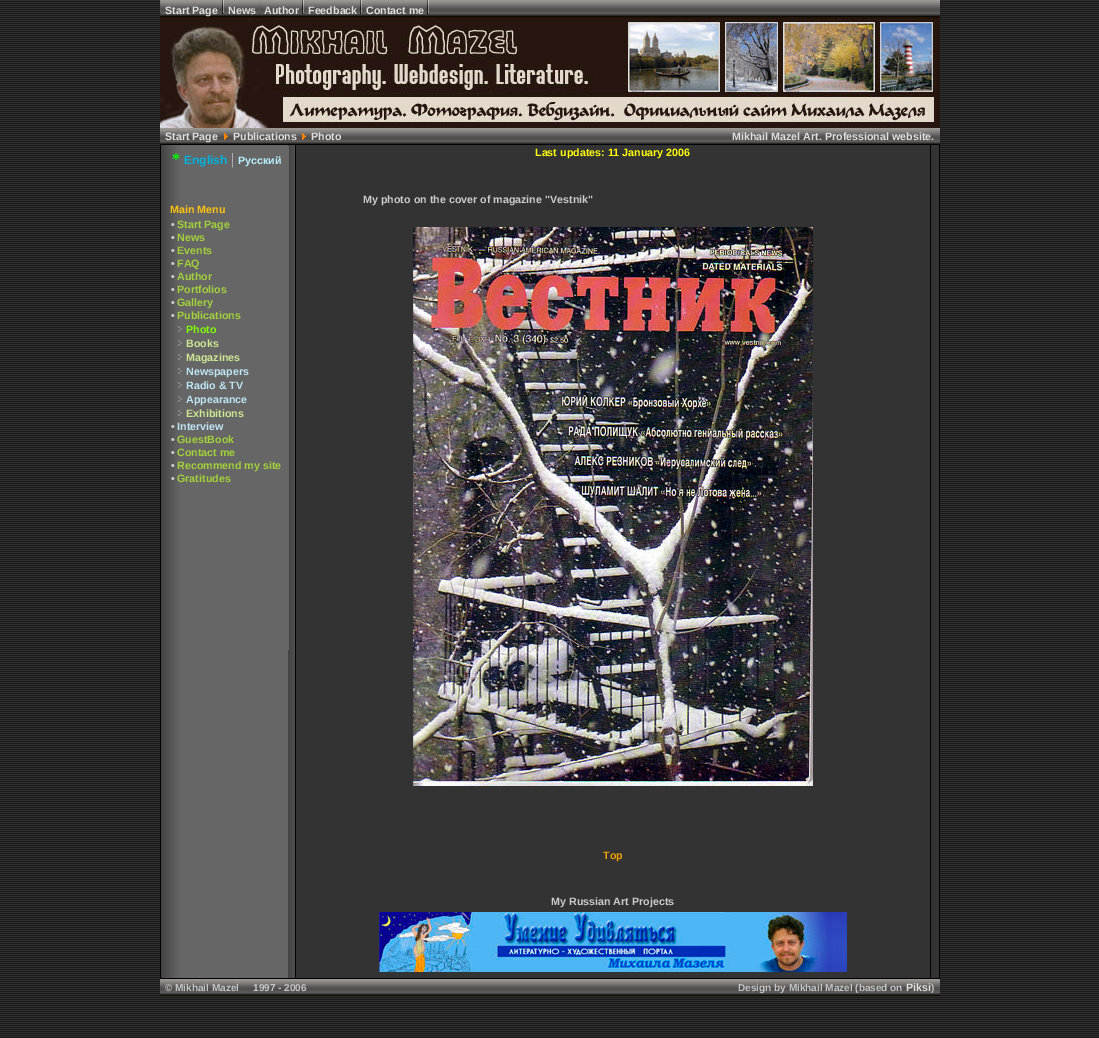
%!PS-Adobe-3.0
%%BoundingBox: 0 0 1099 1038
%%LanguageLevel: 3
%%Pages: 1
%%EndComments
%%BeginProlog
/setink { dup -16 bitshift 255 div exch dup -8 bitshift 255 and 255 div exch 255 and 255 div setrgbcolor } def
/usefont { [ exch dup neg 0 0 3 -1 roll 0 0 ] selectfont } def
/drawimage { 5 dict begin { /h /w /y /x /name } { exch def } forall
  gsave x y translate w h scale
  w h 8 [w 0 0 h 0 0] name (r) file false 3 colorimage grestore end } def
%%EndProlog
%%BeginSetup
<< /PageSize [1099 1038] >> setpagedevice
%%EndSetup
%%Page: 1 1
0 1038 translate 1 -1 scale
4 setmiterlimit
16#FFFFFF setink
0 0 1099 1038 rectfill
(img1.raw) 0 0 1099 1038 drawimage
(img2.raw) 160 0 780 18 drawimage
(img3.raw) 160 0 1 14 drawimage
/LiberationSans-Bold 10.7 usefont
16#E0E0E0 setink
165 14 moveto (Start Page) show
(img4.raw) 222 0 2 14 drawimage
228 14 moveto (News) show
(img3.raw) 259 0 1 14 drawimage
264 14 moveto (Author) show
(img4.raw) 302 0 2 14 drawimage
308 14 moveto (Feedback) show
(img4.raw) 360 0 2 14 drawimage
366 14 moveto (Contact me) show
(img4.raw) 427 0 2 14 drawimage
(img5.raw) 160 18 780 110 drawimage
(img6.raw) 160 128 780 16 drawimage
165 140 moveto (Start Page) show
(img7.raw) 224 133 4 7 drawimage
233 140 moveto (Publications) show
(img7.raw) 302 133 4 7 drawimage
311 140 moveto (Photo) show
732 140 moveto (Mikhail Mazel Art. Professional website.) show
16#000000 setink
160 144 780 835 rectfill
(img8.raw) 161 145 134 833 drawimage
16#666666 setink
288 146 1 504 rectfill
/LiberationSerif-Bold 16 usefont
16#00FF00 setink
172 164 moveto (*) show
/LiberationSans-Bold 12 usefont
16#00B2DB setink
184 164 moveto (English) show
/LiberationSerif-Regular 16 usefont
16#C4C5C7 setink
231 164 moveto (|) show
/LiberationSans-Bold 10.7 usefont
16#B9F2FF setink
238 164 moveto (Русский) show
16#FFC411 setink
170 213 moveto (Main Menu) show
16#CCCCCC setink
171 228 moveto (•) show
16#A3D13B setink
177 228 moveto (Start Page) show
16#CCCCCC setink
171 241 moveto (•) show
16#A3D13B setink
177 241 moveto (News) show
16#CCCCCC setink
171 254 moveto (•) show
16#A3D13B setink
177 254 moveto (Events) show
16#CCCCCC setink
171 267 moveto (•) show
16#A3D13B setink
177 267 moveto (FAQ) show
16#CCCCCC setink
171 280 moveto (•) show
16#A3D13B setink
177 280 moveto (Author) show
16#CCCCCC setink
171 293 moveto (•) show
16#A3D13B setink
177 293 moveto (Portfolios) show
16#CCCCCC setink
171 306 moveto (•) show
16#A3D13B setink
177 306 moveto (Gallery) show
16#CCCCCC setink
171 319 moveto (•) show
16#A3D13B setink
177 319 moveto (Publications) show
(img9.raw) 178 326 4 6 drawimage
16#80FF04 setink
186 333 moveto (Photo) show
(img9.raw) 178 340 4 6 drawimage
16#CDE794 setink
186 347 moveto (Books) show
(img9.raw) 178 354 4 6 drawimage
186 361 moveto (Magazines) show
(img9.raw) 178 368 4 6 drawimage
16#BFE5F4 setink
186 375 moveto (Newspapers) show
(img9.raw) 178 382 4 6 drawimage
186 389 moveto (Radio & TV) show
(img9.raw) 178 396 4 6 drawimage
186 403 moveto (Appearance) show
(img9.raw) 178 410 4 6 drawimage
16#CDE794 setink
186 417 moveto (Exhibitions) show
16#CCCCCC setink
171 430 moveto (•) show
16#BFE5F4 setink
177 430 moveto (Interview) show
16#CCCCCC setink
171 443 moveto (•) show
16#A3D13B setink
177 443 moveto (GuestBook) show
16#CCCCCC setink
171 456 moveto (•) show
16#A3D13B setink
177 456 moveto (Contact me) show
16#CCCCCC setink
171 469 moveto (•) show
16#A3D13B setink
177 469 moveto (Recommend my site) show
16#CCCCCC setink
171 482 moveto (•) show
16#A3D13B setink
177 482 moveto (Gratitudes) show
16#333333 setink
296 145 634 833 rectfill
16#FEFF0F setink
535 156 moveto (Last updates: 11 January 2006) show
16#CCCCCC setink
363 203 moveto (My photo on the cover of magazine "Vestnik") show
(img10.raw) 413 227 400 559 drawimage
16#F0A300 setink
603 859 moveto (Top) show
16#CCCCCC setink
551 905 moveto (My Russian Art Projects) show
(img11.raw) 379 912 468 60 drawimage
16#333333 setink
931 145 8 833 rectfill
(img12.raw) 160 979 190 17 drawimage
/LiberationSans-Bold 10 usefont
16#C4C5C7 setink
165 991 moveto (© Mikhail Mazel) show
253 991 moveto (1997 - 2006) show
(img13.raw) 350 979 590 17 drawimage
738 991 moveto (Design by Mikhail Mazel \(based on) show
/LiberationSans-Bold 10.7 usefont
16#E0E0E0 setink
906 991 moveto (Piksi) show
/LiberationSans-Bold 10 usefont
16#C4C5C7 setink
931 991 moveto (\)) show
showpage
%%EOF
